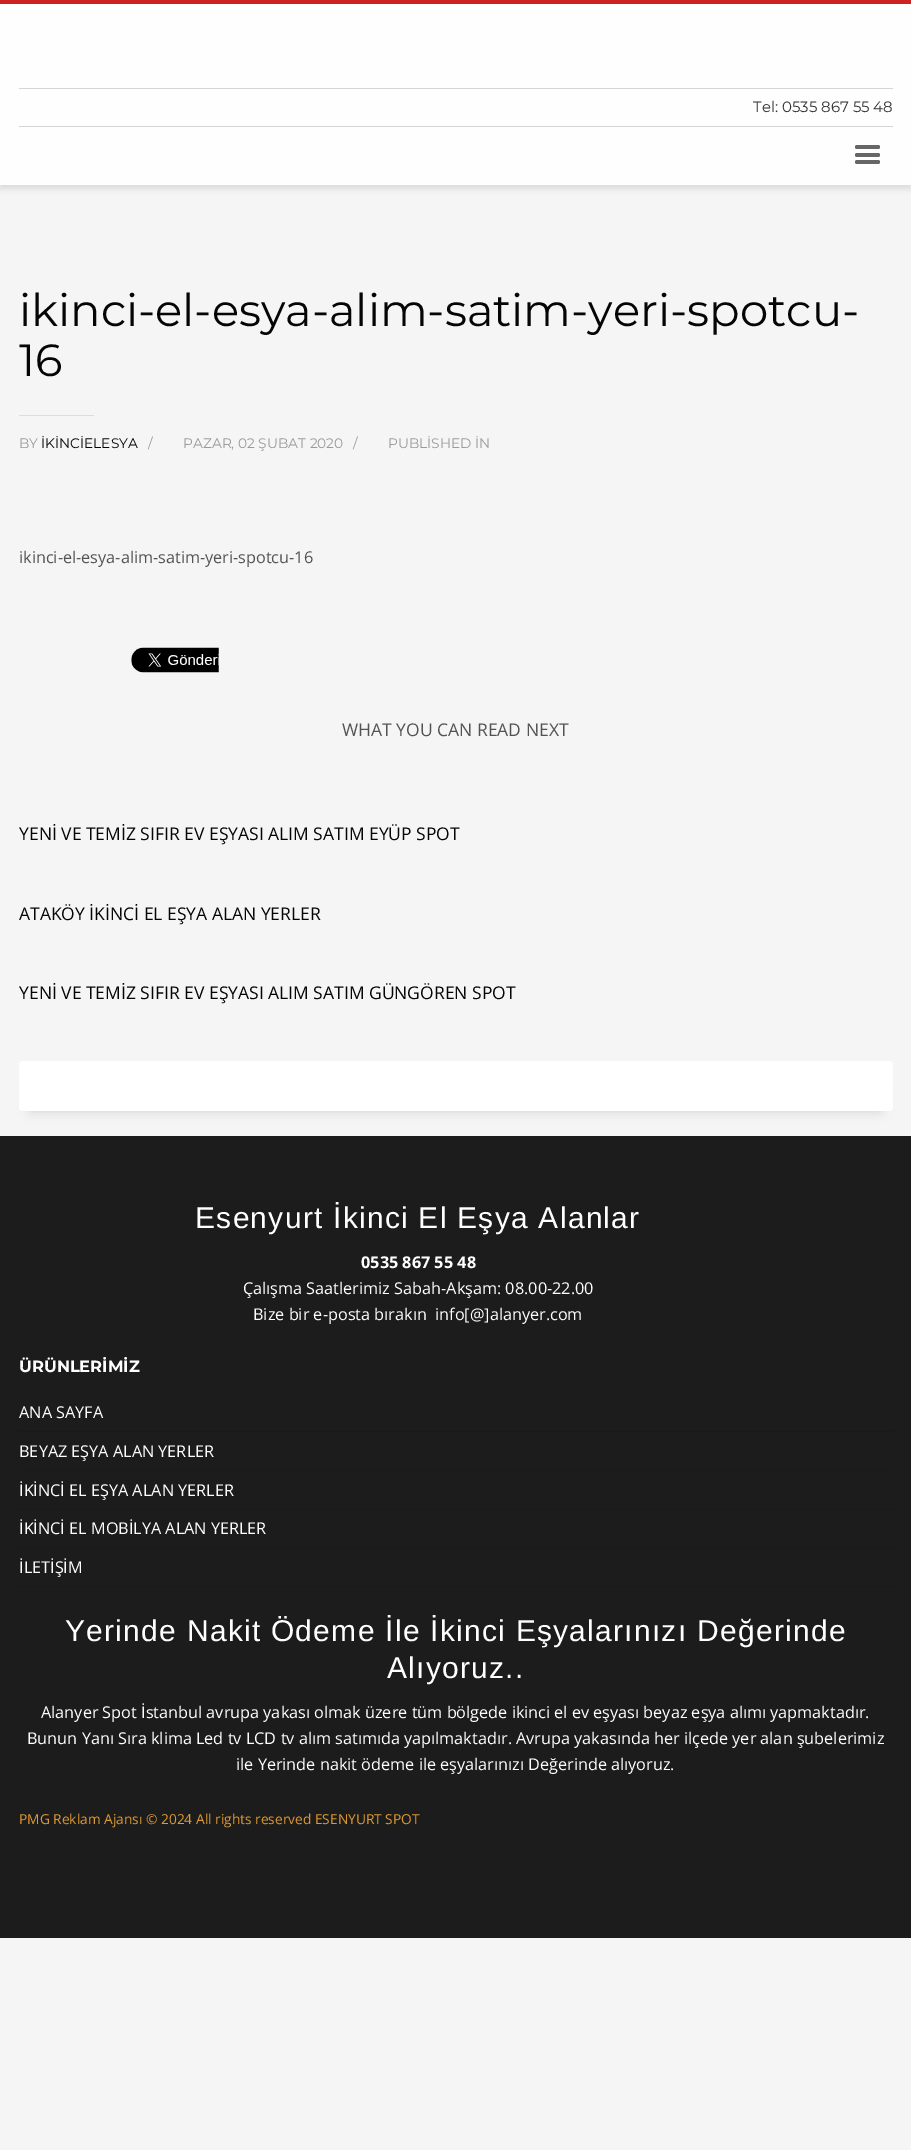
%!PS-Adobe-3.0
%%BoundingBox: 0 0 911 2150
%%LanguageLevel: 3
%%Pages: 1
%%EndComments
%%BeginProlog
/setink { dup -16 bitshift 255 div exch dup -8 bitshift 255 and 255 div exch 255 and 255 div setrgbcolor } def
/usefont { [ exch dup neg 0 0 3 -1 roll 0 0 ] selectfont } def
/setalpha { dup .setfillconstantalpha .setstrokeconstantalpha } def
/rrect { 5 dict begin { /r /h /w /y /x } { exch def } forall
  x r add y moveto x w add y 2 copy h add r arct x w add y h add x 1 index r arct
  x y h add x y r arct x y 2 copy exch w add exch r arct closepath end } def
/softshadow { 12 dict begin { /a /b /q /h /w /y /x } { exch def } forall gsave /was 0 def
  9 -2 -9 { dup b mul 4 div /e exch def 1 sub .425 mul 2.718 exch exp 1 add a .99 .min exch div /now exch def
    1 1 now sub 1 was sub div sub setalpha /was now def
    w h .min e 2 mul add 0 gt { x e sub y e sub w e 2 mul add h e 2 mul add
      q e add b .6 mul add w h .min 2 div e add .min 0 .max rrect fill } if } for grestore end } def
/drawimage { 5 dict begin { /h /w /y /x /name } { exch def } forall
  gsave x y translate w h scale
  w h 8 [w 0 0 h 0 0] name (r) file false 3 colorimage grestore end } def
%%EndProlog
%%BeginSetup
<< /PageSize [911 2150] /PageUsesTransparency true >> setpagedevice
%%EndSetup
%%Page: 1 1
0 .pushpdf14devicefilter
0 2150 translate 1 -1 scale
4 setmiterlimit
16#F5F5F5 setink
0 0 911 2150 rectfill
16#000000 setink
0 4 911 185 0 3 0.1 softshadow
[
    [0 4 911 181 16#FEFEFE]
    [0 0 911 4 16#CD2122]
    [19 88 874 1 16#D5D5D5]
] { aload pop setink rectfill } forall
/Montserrat-Regular 15 usefont
16#333333 setink
753 112 moveto (Tel: 0535 867 55 48) show
16#D5D5D5 setink
19 126 874 1 rectfill
16#666666 setink
855 145 25 4 2 rrect fill
855 153 25 4 2 rrect fill
855 160 25 4 2 rrect fill
/Montserrat-Regular 45 usefont
16#050505 setink
19 326 moveto (ikinci-el-esya-alim-satim-yeri-spotcu-) show
19 376 moveto (16) show
16#DDDDDD setink
19 415 75 1 rectfill
/Montserrat-Regular 13.75 usefont
16#9A9A9A setink
19 448 moveto (BY) show
16#050505 setink
41 448 moveto (İKİNCİELESYA) show
16#9A9A9A setink
[
    [(/) 148 448]
    [(PAZAR, 02 ŞUBAT 2020) 183 448]
    [(/) 353 448]
    [(PUBLİSHED İN) 388 448]
] { aload pop moveto show } forall
/OpenSans-Regular 16.25 usefont
16#535353 setink
19 563 moveto (ikinci-el-esya-alim-satim-yeri-spotcu-16) show
(img1.raw) 131 647 88 26 drawimage
/OpenSans-Regular 17.5 usefont
342 736 moveto (WHAT YOU CAN READ NEXT) show
16#050505 setink
[
    [(YENİ VE TEMİZ SIFIR EV EŞYASI ALIM SATIM EYÜP SPOT) 19 840]
    [(ATAKÖY İKİNCİ EL EŞYA ALAN YERLER) 19 920]
    [(YENİ VE TEMİZ SIFIR EV EŞYASI ALIM SATIM GÜNGÖREN SPOT) 19 999]
] { aload pop moveto show } forall
16#000000 setink
31 1086 849 25 0 6 0.15 softshadow
16#FFFFFF setink
19 1061 874 50 4 rrect fill
16#1C1C1C setink
0 1136 911 802 rectfill
/LiberationSans-Regular 30 usefont
16#FFFFFF setink
195 1228 moveto 1.25 0 (Esenyurt İkinci El Eşya Alanlar) ashow
/OpenSans-Bold 16.25 usefont
361 1268 moveto (0535 867 55 48) show
/OpenSans-Regular 16.25 usefont
243 1294 moveto (Çalışma Saatlerimiz Sabah-Akşam: 08.00-22.00) show
253 1320 moveto (Bize bir e-posta bırakın  info[@]alanyer.com) show
/Montserrat-Bold 16.25 usefont
19 1372 moveto (ÜRÜNLERİMİZ) show
16#191919 setink
19 1431 874 1 rectfill
/OpenSans-Regular 16.25 usefont
16#FFFFFF setink
19 1418 moveto (ANA SAYFA) show
16#191919 setink
19 1470 874 1 rectfill
16#FFFFFF setink
19 1457 moveto (BEYAZ EŞYA ALAN YERLER) show
16#191919 setink
19 1509 874 1 rectfill
16#FFFFFF setink
19 1496 moveto (İKİNCİ EL EŞYA ALAN YERLER) show
16#191919 setink
19 1548 874 1 rectfill
16#FFFFFF setink
19 1534 moveto (İKİNCİ EL MOBİLYA ALAN YERLER) show
16#191919 setink
19 1586 874 1 rectfill
16#FFFFFF setink
19 1573 moveto (İLETİŞİM) show
/LiberationSans-Regular 30 usefont
65 1641 moveto 1.25 0 (Yerinde Nakit Ödeme İle İkinci Eşyalarınızı Değerinde) ashow
387 1678 moveto 1.25 0 (Alıyoruz..) ashow
/OpenSans-Regular 16.25 usefont
[
    [(Alanyer Spot İstanbul avrupa yakası olmak üzere tüm bölgede ikinci el ev eşyası beyaz eşya alımı yapmaktadır.) 41 1718]
    [(Bunun Yanı Sıra klima Led tv LCD tv alım satımıda yapılmaktadır. Avrupa yakasında her ilçede yer alan şubelerimiz) 27 1744]
    [(ile Yerinde nakit ödeme ile eşyalarınızı Değerinde alıyoruz.) 236 1770]
] { aload pop moveto show } forall
/OpenSans-Regular 13.75 usefont
16#DD9933 setink
19 1824 moveto (PMG Reklam Ajansı © 2024 All rights reserved ESENYURT SPOT) show
.poppdf14devicefilter showpage
%%EOF
